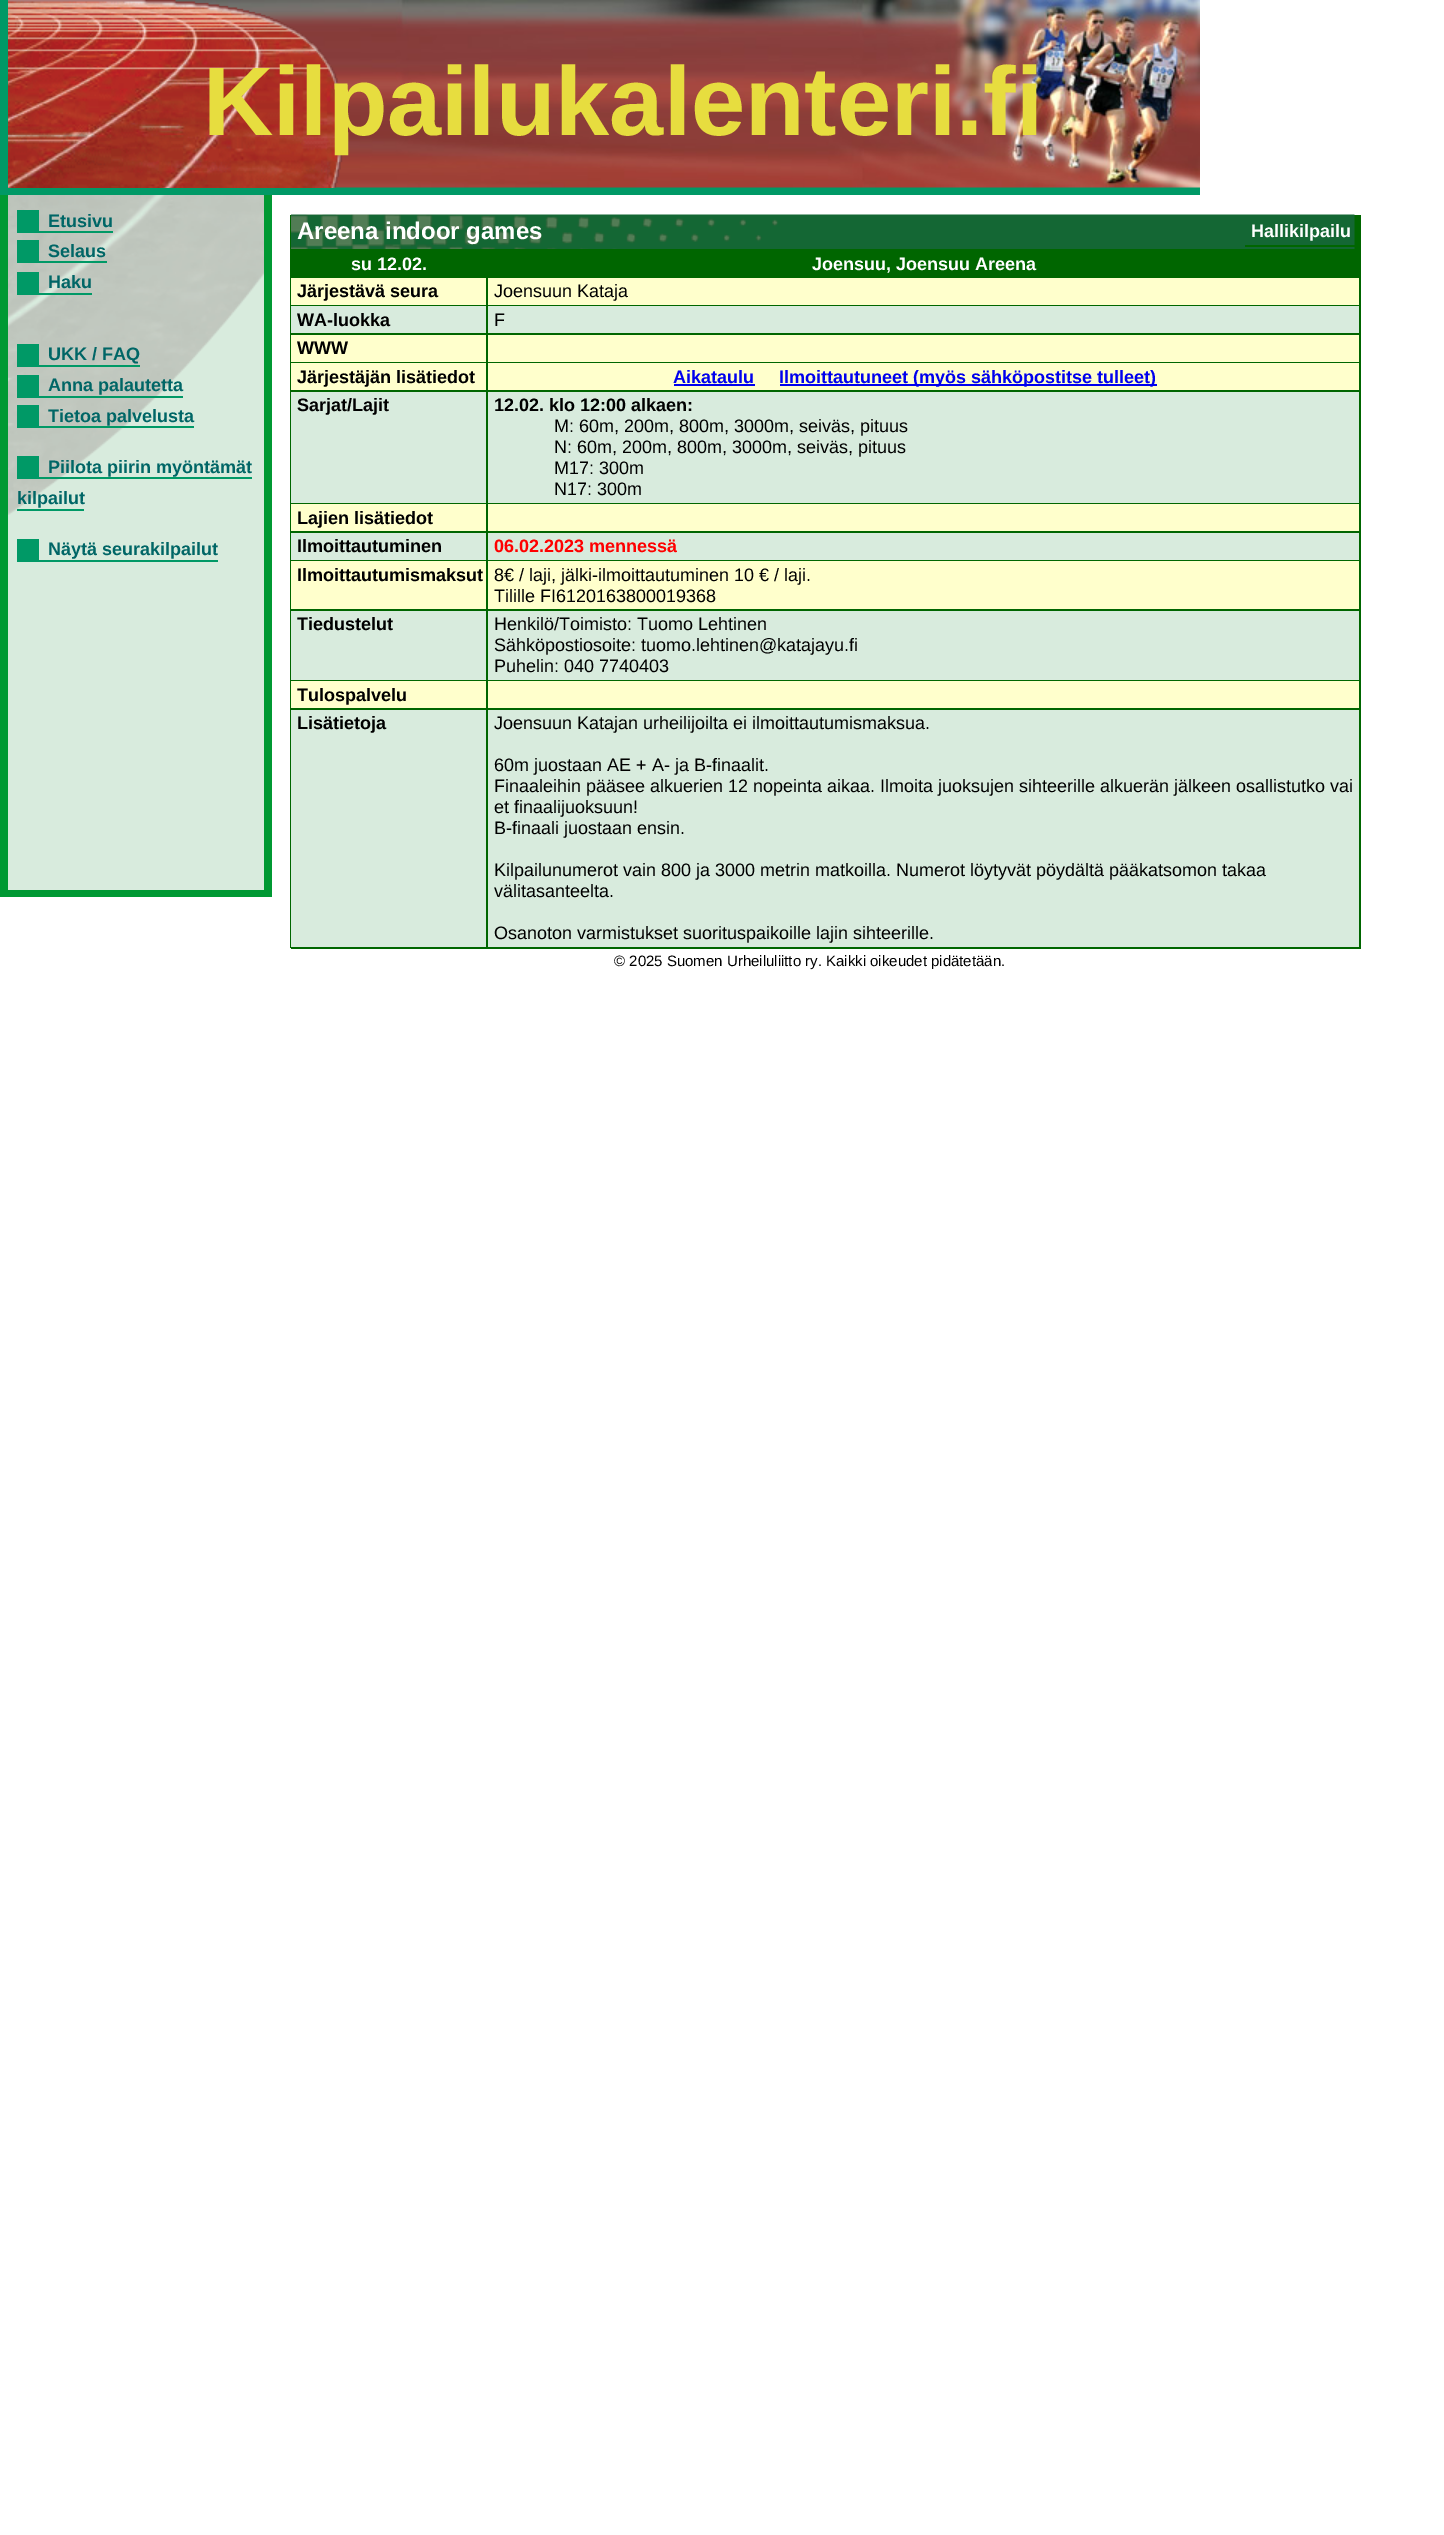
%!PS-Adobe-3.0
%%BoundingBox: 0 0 1444 2535
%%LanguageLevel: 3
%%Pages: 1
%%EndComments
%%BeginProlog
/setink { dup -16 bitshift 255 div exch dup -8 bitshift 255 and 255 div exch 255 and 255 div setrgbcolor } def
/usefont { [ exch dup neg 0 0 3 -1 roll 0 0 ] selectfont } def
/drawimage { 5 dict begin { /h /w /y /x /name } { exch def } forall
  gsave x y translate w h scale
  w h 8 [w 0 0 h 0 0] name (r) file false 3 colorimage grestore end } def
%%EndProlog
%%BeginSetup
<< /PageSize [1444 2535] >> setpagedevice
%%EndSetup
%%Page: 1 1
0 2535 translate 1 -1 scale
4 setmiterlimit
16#FFFFFF setink
0 0 1444 2535 rectfill
16#009966 setink
334 187 866 1 rectfill
(img1.raw) 175 0 1025 188 drawimage
(img2.raw) 8 0 336 188 drawimage
[
    [264 188 8 709 16#009933]
    [0 890 272 7 16#009933]
    [0 188 8 709 16#009933]
    [0 188 1200 7 16#009966]
    [0 0 8 195 16#009966]
] { aload pop setink rectfill } forall
/LiberationSans-Bold 97.5 usefont
16#E7DD3F setink
203 135 moveto (Kilpailukalenteri.fi) show
16#D8EBDD setink
8 212 256 678 rectfill
(img3.raw) 8 195 256 320 drawimage
/LiberationSans-Bold 18 usefont
16#006666 setink
48 227 moveto (Etusivu) show
16#009966 setink
39 231 74 2 rectfill
17 210 22 23 rectfill
16#006666 setink
48 257 moveto (Selaus) show
16#009966 setink
39 261 68 2 rectfill
17 240 22 23 rectfill
16#006666 setink
48 288 moveto (Haku) show
16#009966 setink
17 293 75 2 rectfill
17 272 22 21 rectfill
16#006666 setink
48 360 moveto (UKK / FAQ) show
16#009966 setink
17 365 123 2 rectfill
17 344 22 21 rectfill
16#006666 setink
48 391 moveto (Anna palautetta) show
16#009966 setink
39 396 144 2 rectfill
17 375 22 23 rectfill
16#006666 setink
48 422 moveto (Tietoa palvelusta) show
16#009966 setink
39 426 155 2 rectfill
17 405 22 23 rectfill
16#006666 setink
48 473 moveto (Piilota piirin myöntämät) show
16#009966 setink
39 477 213 2 rectfill
17 456 22 23 rectfill
16#006666 setink
17 504 moveto (kilpailut) show
16#009966 setink
17 509 67 2 rectfill
16#006666 setink
48 555 moveto (Näytä seurakilpailut) show
[
    [17 560 201 2 16#009966]
    [17 539 22 21 16#009966]
    [290 215 1 733 16#006600]
    [1354 215 7 34 16#006600]
] { aload pop setink rectfill } forall
(img4.raw) 291 214 1064 35 drawimage
291 249 1070 2 rectfill
/LiberationSans-Bold 24 usefont
16#FFFFFF setink
297 239 moveto (Areena indoor games) show
16#006600 setink
1245 245 111 2 rectfill
/LiberationSans-Bold 18 usefont
16#FFFFFF setink
1251 237 moveto (Hallikilpailu) show
16#006600 setink
291 251 1070 27 rectfill
16#FFFFFF setink
351 270 moveto (su 12.02.) show
812 270 moveto (Joensuu, Joensuu Areena) show
[
    [291 278 1068 27 16#FFFFCC]
    [486 278 2 28 16#006600]
    [291 305 197 1 16#006600]
] { aload pop setink rectfill } forall
16#000000 setink
297 297 moveto (Järjestävä seura) show
16#006600 setink
1359 278 2 670 rectfill
488 305 873 1 rectfill
/LiberationSans-Regular 18 usefont
16#000000 setink
494 297 moveto (Joensuun Kataja) show
[
    [291 306 1068 27 16#D8EBDD]
    [486 306 2 29 16#006600]
    [291 333 1070 2 16#006600]
] { aload pop setink rectfill } forall
/LiberationSans-Bold 18 usefont
16#000000 setink
297 326 moveto (WA-luokka) show
/LiberationSans-Regular 18 usefont
494 326 moveto (F) show
[
    [291 335 1068 27 16#FFFFCC]
    [486 335 2 28 16#006600]
    [291 362 1070 1 16#006600]
] { aload pop setink rectfill } forall
/LiberationSans-Bold 18 usefont
16#000000 setink
297 354 moveto (WWW) show
[
    [291 363 1068 27 16#FFFFCC]
    [486 363 2 29 16#006600]
    [291 390 1070 2 16#006600]
] { aload pop setink rectfill } forall
16#000000 setink
297 383 moveto (Järjestäjän lisätiedot) show
16#0000EE setink
673 383 moveto (Aikataulu) show
674 384 81 2 rectfill
780 384 377 2 rectfill
779 383 moveto (Ilmoittautuneet \(myös sähköpostitse tulleet\)) show
[
    [291 392 1068 111 16#D8EBDD]
    [486 392 2 112 16#006600]
    [291 503 1070 1 16#006600]
] { aload pop setink rectfill } forall
16#000000 setink
297 411 moveto (Sarjat/Lajit) show
494 411 moveto (12.02. klo 12:00 alkaen:) show
/LiberationSans-Regular 18 usefont
[
    [(M: 60m, 200m, 800m, 3000m, seiväs, pituus) 554 432]
    [(N: 60m, 200m, 800m, 3000m, seiväs, pituus) 554 453]
    [(M17: 300m) 554 474]
    [(N17: 300m) 554 495]
] { aload pop moveto show } forall
[
    [291 504 1068 27 16#FFFFCC]
    [486 504 2 29 16#006600]
    [291 531 1070 2 16#006600]
] { aload pop setink rectfill } forall
/LiberationSans-Bold 18 usefont
16#000000 setink
297 524 moveto (Lajien lisätiedot) show
[
    [291 533 1068 27 16#D8EBDD]
    [486 533 2 28 16#006600]
    [291 560 1070 1 16#006600]
] { aload pop setink rectfill } forall
16#000000 setink
297 552 moveto (Ilmoittautuminen) show
16#FF0000 setink
494 552 moveto (06.02.2023 mennessä) show
[
    [291 561 1068 48 16#FFFFCC]
    [486 561 2 50 16#006600]
    [291 609 1070 2 16#006600]
] { aload pop setink rectfill } forall
16#000000 setink
297 581 moveto (Ilmoittautumismaksut) show
/LiberationSans-Regular 18 usefont
494 581 moveto (8€ / laji, jälki-ilmoittautuminen 10 € / laji.) show
494 602 moveto (Tilille FI6120163800019368) show
[
    [291 611 1068 69 16#D8EBDD]
    [486 611 2 70 16#006600]
    [291 680 1070 1 16#006600]
] { aload pop setink rectfill } forall
/LiberationSans-Bold 18 usefont
16#000000 setink
297 630 moveto (Tiedustelut) show
/LiberationSans-Regular 18 usefont
[
    [(Henkilö/Toimisto: Tuomo Lehtinen) 494 630]
    [(Sähköpostiosoite: tuomo.lehtinen@katajayu.fi) 494 651]
    [(Puhelin: 040 7740403) 494 672]
] { aload pop moveto show } forall
[
    [291 681 1068 27 16#FFFFCC]
    [486 681 2 29 16#006600]
    [291 708 1070 2 16#006600]
] { aload pop setink rectfill } forall
/LiberationSans-Bold 18 usefont
16#000000 setink
297 701 moveto (Tulospalvelu) show
[
    [291 710 1068 237 16#D8EBDD]
    [486 710 2 238 16#006600]
    [291 947 1070 2 16#006600]
] { aload pop setink rectfill } forall
16#000000 setink
297 729 moveto (Lisätietoja) show
/LiberationSans-Regular 18 usefont
[
    [(Joensuun Katajan urheilijoilta ei ilmoittautumismaksua.) 494 729]
    [(60m juostaan AE + A- ja B-finaalit.) 494 771]
    [(Finaaleihin pääsee alkuerien 12 nopeinta aikaa. Ilmoita juoksujen sihteerille alkuerän jälkeen osallistutko vai) 494 792]
    [(et finaalijuoksuun!) 494 813]
    [(B-finaali juostaan ensin.) 494 834]
    [(Kilpailunumerot vain 800 ja 3000 metrin matkoilla. Numerot löytyvät pöydältä pääkatsomon takaa) 494 876]
    [(välitasanteelta.) 494 897]
    [(Osanoton varmistukset suorituspaikoille lajin sihteerille.) 494 939]
] { aload pop moveto show } forall
/LiberationSans-Regular 15 usefont
614 966 moveto (© 2025 Suomen Urheiluliitto ry. Kaikki oikeudet pidätetään.) show
showpage
%%EOF
